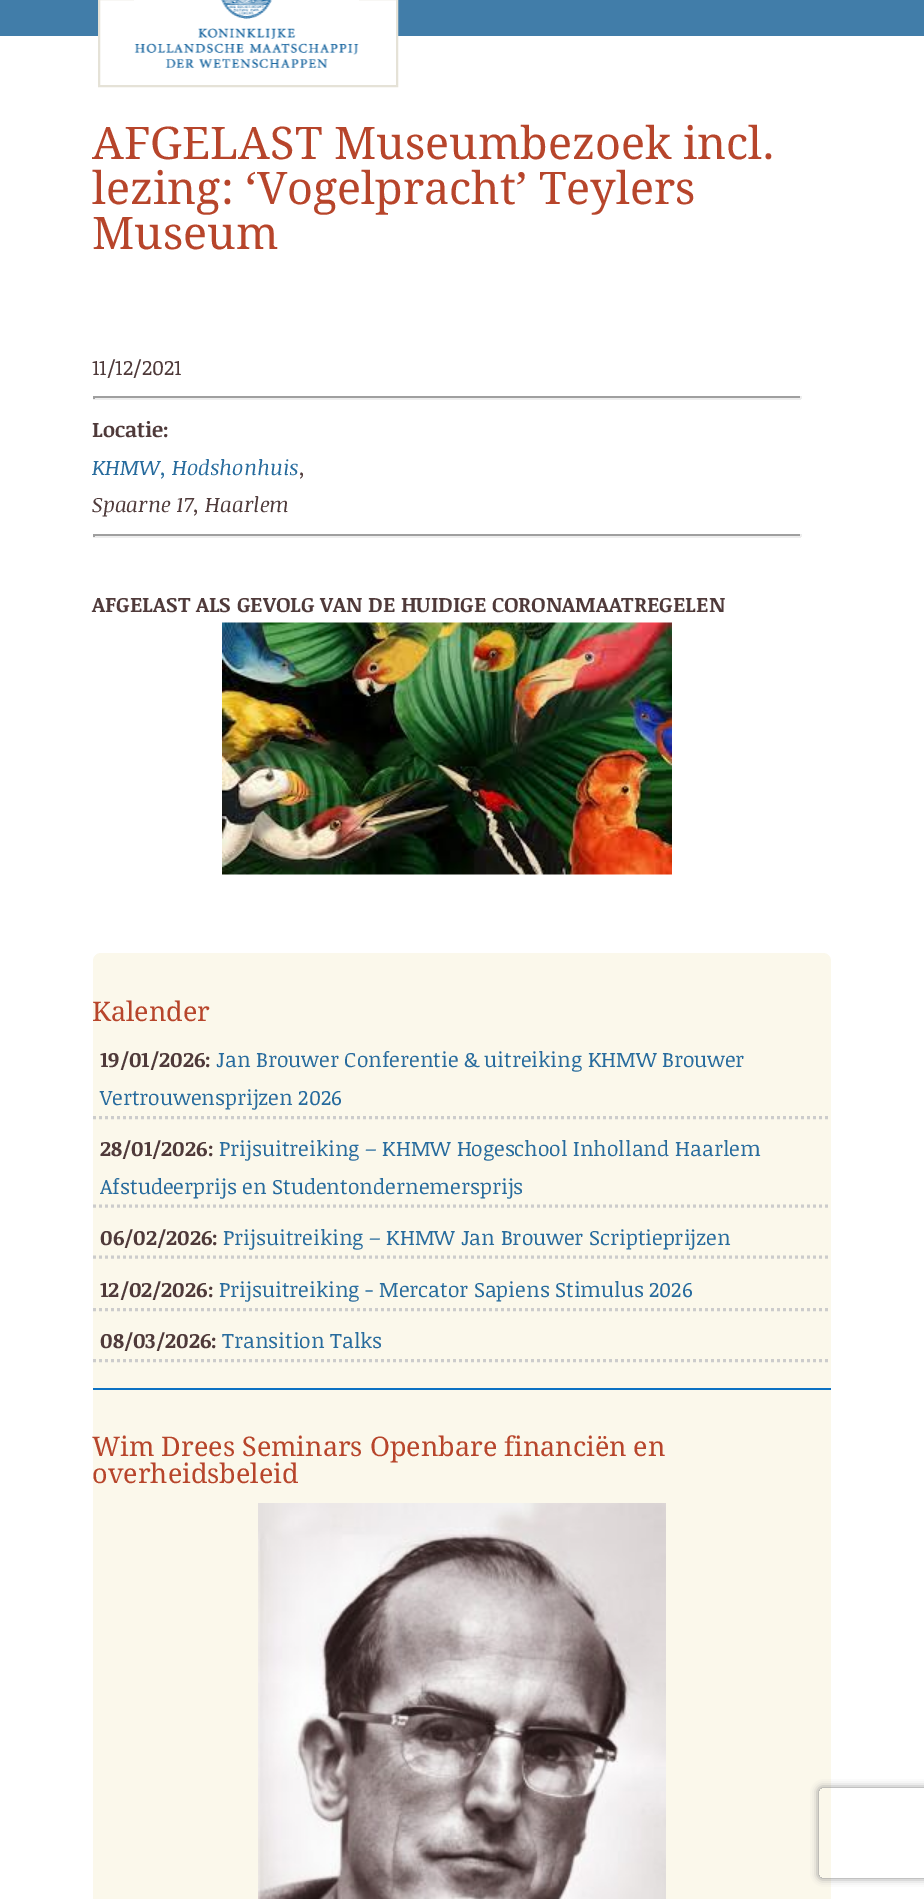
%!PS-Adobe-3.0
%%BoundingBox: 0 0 924 1899
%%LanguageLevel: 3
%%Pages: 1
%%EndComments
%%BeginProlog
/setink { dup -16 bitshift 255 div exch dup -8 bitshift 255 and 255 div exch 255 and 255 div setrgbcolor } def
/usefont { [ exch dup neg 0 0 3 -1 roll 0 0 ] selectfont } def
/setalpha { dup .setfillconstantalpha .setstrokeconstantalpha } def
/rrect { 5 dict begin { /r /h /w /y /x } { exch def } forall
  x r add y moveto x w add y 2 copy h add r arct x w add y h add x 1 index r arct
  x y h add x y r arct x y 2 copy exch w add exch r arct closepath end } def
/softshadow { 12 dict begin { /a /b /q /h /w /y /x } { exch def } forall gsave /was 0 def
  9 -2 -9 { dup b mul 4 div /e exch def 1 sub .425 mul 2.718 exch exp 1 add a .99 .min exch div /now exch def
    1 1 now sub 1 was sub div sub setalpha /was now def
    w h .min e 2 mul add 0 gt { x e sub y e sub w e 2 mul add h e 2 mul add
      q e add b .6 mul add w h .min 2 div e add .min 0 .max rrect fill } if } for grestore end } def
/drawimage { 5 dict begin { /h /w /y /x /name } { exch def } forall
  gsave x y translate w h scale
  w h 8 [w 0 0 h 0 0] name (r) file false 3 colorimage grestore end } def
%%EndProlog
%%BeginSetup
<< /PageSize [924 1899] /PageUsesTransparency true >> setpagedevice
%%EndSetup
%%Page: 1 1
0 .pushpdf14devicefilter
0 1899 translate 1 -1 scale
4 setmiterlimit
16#FFFFFF setink
0 0 924 1899 rectfill
16#417DA9 setink
0 0 924 36 rectfill
16#FFFFFF setink
100 0 296 36 rectfill
16#E5E2D7 setink
2 setlinewidth
99 -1 298 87 rectstroke
(img1.raw) 134 0 225 68 drawimage
/DroidSerif-Regular 45 usefont
16#B7452B setink
[
    [(AFGELAST Museumbezoek incl.) 92 159]
    [(lezing: ‘Vogelpracht’ Teylers) 92 204]
    [(Museum) 92 249]
] { aload pop moveto show } forall
/NoticiaText-Regular 21 usefont
16#4F3A3A setink
92 375 moveto (11/12/2021) show
[
    [93 396 708 2 16#9F9F9F]
    [800 396 2 3 16#EEEEEE]
    [93 398 708 2 16#EEEEEE]
    [93 396 2 3 16#9F9F9F]
] { aload pop setink rectfill } forall
/NoticiaText-Bold 21 usefont
16#4F3A3A setink
92 437 moveto (Locatie:) show
/NoticiaText-Italic 21 usefont
16#276B9D setink
92 475 moveto (KHMW, Hodshonhuis) show
16#4F3A3A setink
299 475 moveto (,) show
92 512 moveto (Spaarne 17, Haarlem) show
[
    [93 534 708 2 16#9F9F9F]
    [800 534 2 3 16#EEEEEE]
    [93 536 708 2 16#EEEEEE]
    [93 534 2 3 16#9F9F9F]
] { aload pop setink rectfill } forall
/NoticiaText-Bold 21 usefont
16#4F3A3A setink
92 612 moveto (AFGELAST ALS GEVOLG VAN DE HUIDIGE CORONAMAATREGELEN) show
(img2.raw) 222 622 450 253 drawimage
16#FBF8EB setink
93 953 738 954 8 rrect fill
16#0C71C3 setink
93 1388 738 2 rectfill
/DroidSerif-Regular 27 usefont
16#B7452B setink
92 1021 moveto (Kalender) show
16#CCCCCC setink
3 setlinewidth
[3 3] 0 setdash
93 1117.5 moveto 831 1117.5 lineto stroke
/NoticiaText-Bold 21 usefont
16#4F3A3A setink
100 1067 moveto (19/01/2026:) show
/NoticiaText-Regular 21 usefont
16#276B9D setink
216 1067 moveto (Jan Brouwer Conferentie & uitreiking KHMW Brouwer) show
100 1105 moveto (Vertrouwensprijzen 2026) show
16#CCCCCC setink
93 1206 moveto 831 1206 lineto stroke
/NoticiaText-Bold 21 usefont
16#4F3A3A setink
100 1156 moveto (28/01/2026:) show
/NoticiaText-Regular 21 usefont
16#276B9D setink
219 1156 moveto (Prijsuitreiking – KHMW Hogeschool Inholland Haarlem) show
100 1194 moveto (Afstudeerprijs en Studentondernemersprijs) show
16#CCCCCC setink
93 1257 moveto 831 1257 lineto stroke
/NoticiaText-Bold 21 usefont
16#4F3A3A setink
100 1245 moveto (06/02/2026:) show
/NoticiaText-Regular 21 usefont
16#276B9D setink
223 1245 moveto (Prijsuitreiking – KHMW Jan Brouwer Scriptieprijzen) show
16#CCCCCC setink
93 1309.5 moveto 831 1309.5 lineto stroke
/NoticiaText-Bold 21 usefont
16#4F3A3A setink
100 1297 moveto (12/02/2026:) show
/NoticiaText-Regular 21 usefont
16#276B9D setink
219 1297 moveto (Prijsuitreiking - Mercator Sapiens Stimulus 2026) show
16#CCCCCC setink
93 1360.5 moveto 831 1360.5 lineto stroke
/NoticiaText-Bold 21 usefont
16#4F3A3A setink
100 1348 moveto (08/03/2026:) show
/NoticiaText-Regular 21 usefont
16#276B9D setink
222 1348 moveto (Transition Talks) show
/DroidSerif-Regular 27 usefont
16#B7452B setink
92 1456 moveto (Wim Drees Seminars Openbare financiën en) show
92 1483 moveto (overheidsbeleid) show
(img3.raw) 258 1503 408 396 drawimage
gsave
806 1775 moveto 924 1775 lineto 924 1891 lineto 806 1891 lineto closepath 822 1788 moveto 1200 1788 lineto 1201.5 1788 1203 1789.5 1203 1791 curveto 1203 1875 lineto 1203 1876.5 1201.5 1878 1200 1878 curveto 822 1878 lineto 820.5 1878 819 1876.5 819 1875 curveto 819 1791 lineto 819 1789.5 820.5 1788 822 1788 curveto closepath eoclip newpath
16#808080 setink
819 1788 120 90 3 4 1 softshadow
grestore
.poppdf14devicefilter showpage
%%EOF
